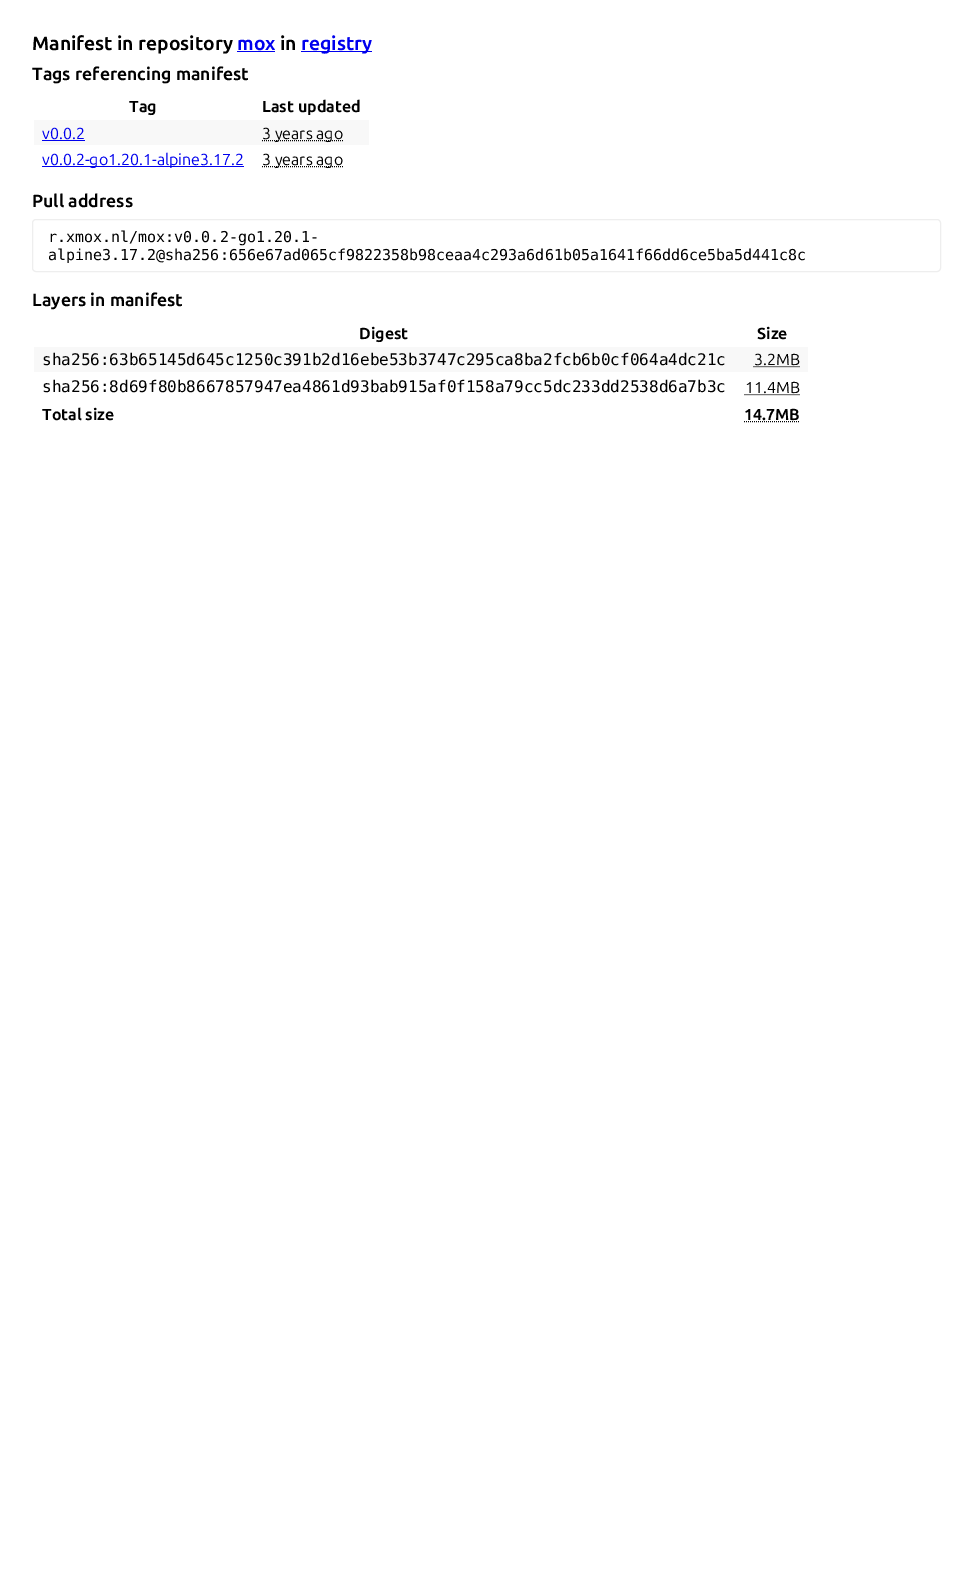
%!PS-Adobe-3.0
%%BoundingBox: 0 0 973 1585
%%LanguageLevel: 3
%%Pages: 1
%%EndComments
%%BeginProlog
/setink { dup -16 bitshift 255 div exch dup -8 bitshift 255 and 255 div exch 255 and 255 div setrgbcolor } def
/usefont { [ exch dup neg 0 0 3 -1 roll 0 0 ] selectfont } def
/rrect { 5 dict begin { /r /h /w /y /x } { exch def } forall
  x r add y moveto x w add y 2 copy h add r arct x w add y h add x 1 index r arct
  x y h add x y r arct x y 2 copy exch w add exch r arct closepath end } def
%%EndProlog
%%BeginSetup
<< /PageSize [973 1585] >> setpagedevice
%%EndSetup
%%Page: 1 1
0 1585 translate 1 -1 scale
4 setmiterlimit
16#FFFFFF setink
0 0 973 1585 rectfill
/Ubuntu-Bold 19.25 usefont
16#000000 setink
32 50 moveto (Manifest in repository) show
16#0000EE setink
237 50 moveto (mox) show
237 51 38 1 rectfill
16#000000 setink
280 50 moveto (in) show
16#0000EE setink
301 51 71 1 rectfill
301 50 moveto (registry) show
/Ubuntu-Bold 17.6 usefont
16#000000 setink
32 80 moveto (Tags referencing manifest) show
/Ubuntu-Bold 16 usefont
129 112 moveto (Tag) show
262 112 moveto (Last updated) show
16#F8F8F8 setink
34 120 335 25 rectfill
/Ubuntu-Regular 16 usefont
16#0000EE setink
42 139 moveto (v0.0.2) show
42 140 43 1 rectfill
16#000000 setink
[1 1] 0 setdash
262 140.5 moveto 343 140.5 lineto stroke
262 139 moveto (3 years ago) show
16#0000EE setink
42 166 202 1 rectfill
42 165 moveto (v0.0.2-go1.20.1-alpine3.17.2) show
16#000000 setink
262 166.5 moveto 343 166.5 lineto stroke
262 165 moveto (3 years ago) show
/Ubuntu-Bold 17.6 usefont
32 207 moveto (Pull address) show
16#EEEEEE setink
[] 0 setdash
32.5 219.5 908 52 3.5 rrect stroke
/DejaVuSansMono-Regular 15 usefont
16#000000 setink
48 242 moveto (r.xmox.nl/mox:v0.0.2-go1.20.1-) show
48 260 moveto (alpine3.17.2@sha256:656e67ad065cf9822358b98ceaa4c293a6d61b05a1641f66dd6ce5ba5d441c8c) show
/Ubuntu-Bold 17.6 usefont
32 306 moveto (Layers in manifest) show
/Ubuntu-Bold 16 usefont
359 339 moveto (Digest) show
757 339 moveto (Size) show
16#F8F8F8 setink
34 347 774 25 rectfill
/DejaVuSansMono-Regular 16 usefont
16#000000 setink
42 365 moveto (sha256:63b65145d645c1250c391b2d16ebe53b3747c295ca8ba2fcb6b0cf064a4dc21c) show
/Ubuntu-Regular 16 usefont
754 365 moveto (3.2MB) show
[1 1] 0 setdash
753.5 366.5 moveto 800 366.5 lineto stroke
/DejaVuSansMono-Regular 16 usefont
42 392 moveto (sha256:8d69f80b8667857947ea4861d93bab915af0f158a79cc5dc233dd2538d6a7b3c) show
/Ubuntu-Regular 16 usefont
745 393 moveto (11.4MB) show
744.5 394.5 moveto 800 394.5 lineto stroke
/Ubuntu-Bold 16 usefont
42 420 moveto (Total size) show
744 420 moveto (14.7MB) show
744 421.5 moveto 800 421.5 lineto stroke
showpage
%%EOF
